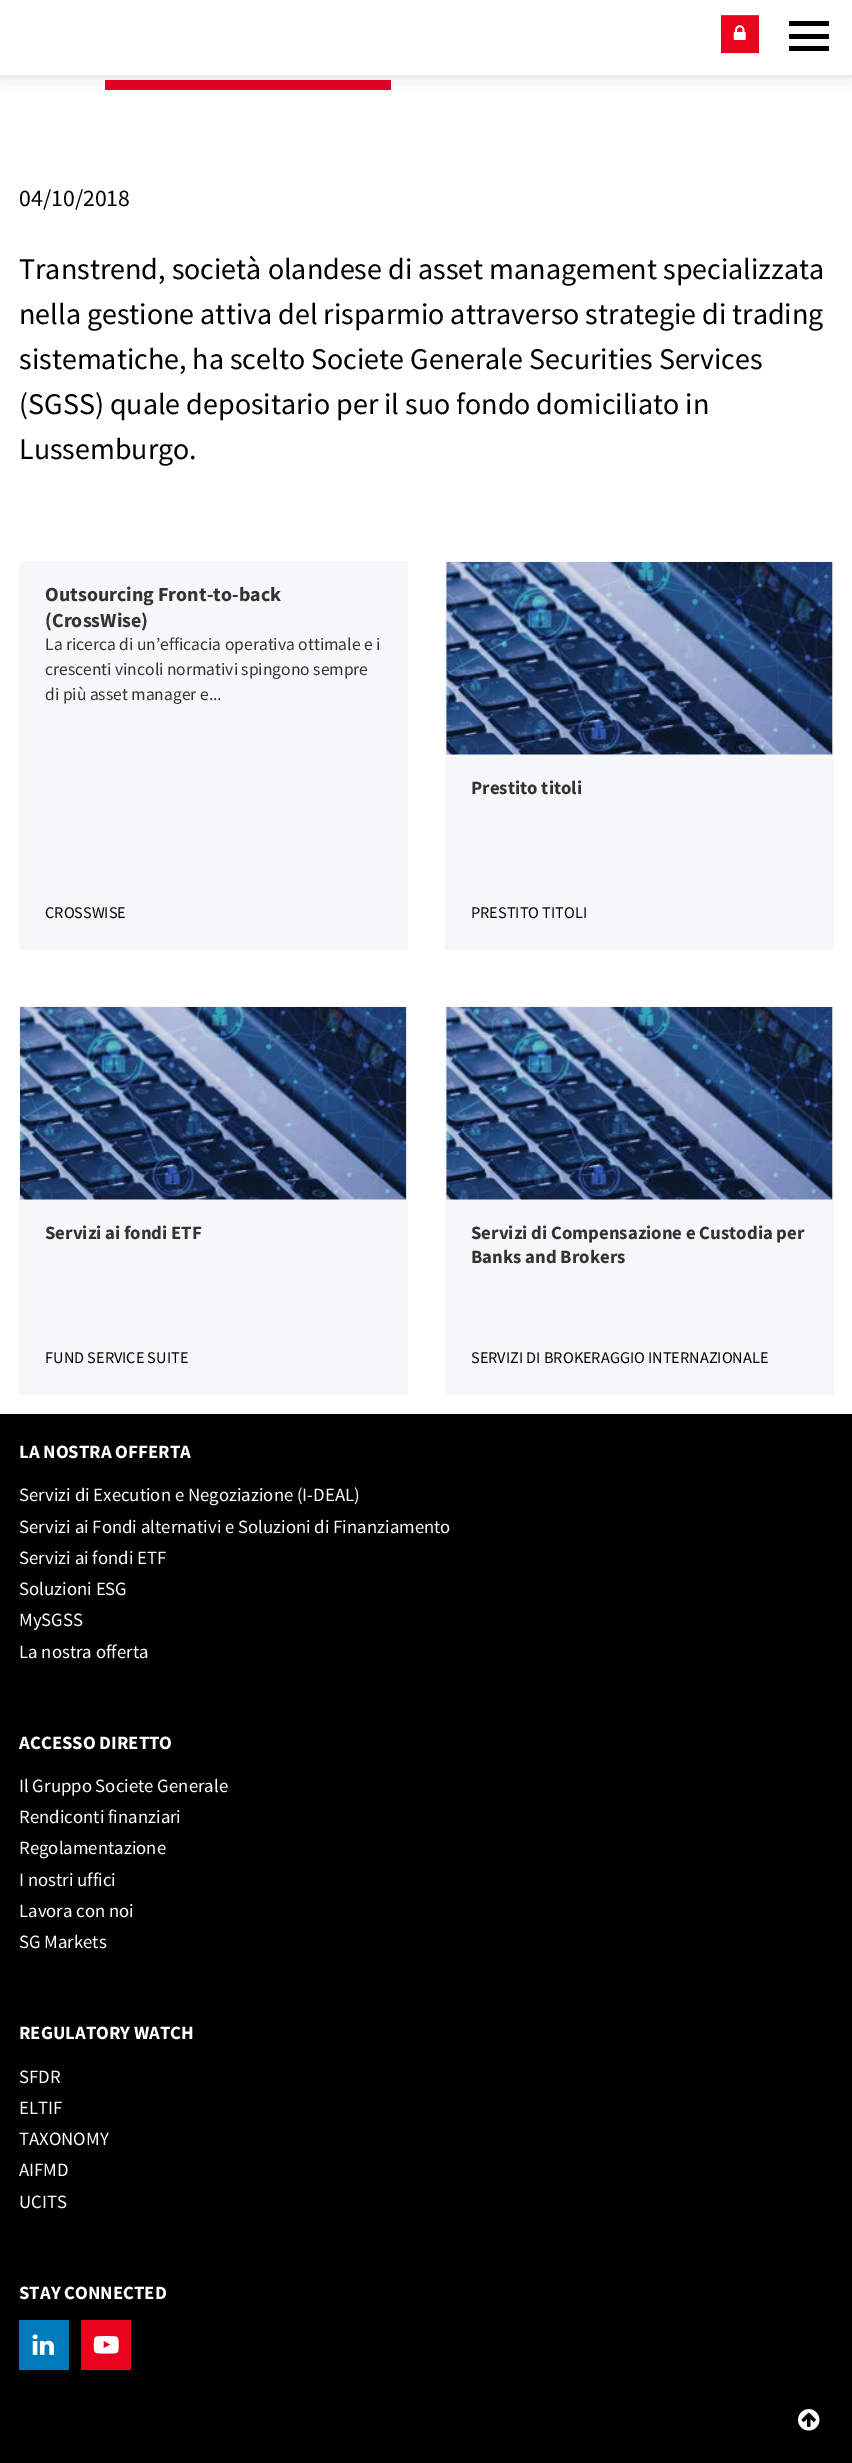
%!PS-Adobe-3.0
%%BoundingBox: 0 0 852 2463
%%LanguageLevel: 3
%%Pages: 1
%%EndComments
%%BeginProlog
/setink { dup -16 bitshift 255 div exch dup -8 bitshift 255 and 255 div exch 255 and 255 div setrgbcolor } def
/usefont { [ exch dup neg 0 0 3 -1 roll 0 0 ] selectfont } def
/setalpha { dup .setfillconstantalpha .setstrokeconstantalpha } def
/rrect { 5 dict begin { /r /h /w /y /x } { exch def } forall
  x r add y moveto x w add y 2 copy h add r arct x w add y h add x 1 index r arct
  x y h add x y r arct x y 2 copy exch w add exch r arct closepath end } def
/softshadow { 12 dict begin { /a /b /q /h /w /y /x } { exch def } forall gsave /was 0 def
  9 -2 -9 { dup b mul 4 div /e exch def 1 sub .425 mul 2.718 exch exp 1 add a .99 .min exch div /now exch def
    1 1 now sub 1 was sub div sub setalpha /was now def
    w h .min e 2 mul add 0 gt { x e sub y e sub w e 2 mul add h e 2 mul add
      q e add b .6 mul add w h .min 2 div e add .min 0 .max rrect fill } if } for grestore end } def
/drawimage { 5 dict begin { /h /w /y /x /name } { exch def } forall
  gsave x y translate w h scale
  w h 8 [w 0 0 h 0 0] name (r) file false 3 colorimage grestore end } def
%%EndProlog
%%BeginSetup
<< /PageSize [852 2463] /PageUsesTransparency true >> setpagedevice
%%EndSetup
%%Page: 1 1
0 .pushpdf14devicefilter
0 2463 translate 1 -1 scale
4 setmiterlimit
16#FFFFFF setink
0 0 852 2463 rectfill
16#E60028 setink
105 80 286 10 rectfill
16#000000 setink
0 -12 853 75 0 12.5 0.5 softshadow
16#FFFFFF setink
0 0 852 75 rectfill
16#000000 setink
721 16 38 38 0 0.5 0.07 softshadow
16#E9041E setink
721 16 38 37 rectfill
16#EC2A40 setink
721 15 38 1 rectfill
(img1.raw) 733 25 13 15 drawimage
[
    [789 34 40 5 16#000000]
    [789 21 40 5 16#000000]
    [789 46 40 5 16#000000]
] { aload pop setink rectfill } forall
/SourceSansPro-Regular 23.75 usefont
19 206 moveto (04/10/2018) show
/SourceSansPro-Regular 30 usefont
[
    [(Transtrend, società olandese di asset management specializzata) 19 279]
    [(nella gestione attiva del risparmio attraverso strategie di trading) 19 324]
    [(sistematiche, ha scelto Societe Generale Securities Services) 19 369]
    [(\(SGSS\) quale depositario per il suo fondo domiciliato in) 19 414]
    [(Lussemburgo.) 19 459]
] { aload pop moveto show } forall
16#F6F7F8 setink
19 561 389 389 rectfill
/SourceSansPro-Bold 20 usefont
16#333333 setink
45 601 moveto (Outsourcing Front-to-back) show
45 627 moveto (\(CrossWise\)) show
/SourceSansPro-Regular 17.5 usefont
[
    [(La ricerca di un’efficacia operativa ottimale e i) 45 650]
    [(crescenti vincoli normativi spingono sempre) 45 675]
    [(di più asset manager e...) 45 700]
] { aload pop moveto show } forall
/SourceSansPro-Regular 16.25 usefont
16#000000 setink
45 918 moveto (CROSSWISE) show
16#F6F7F8 setink
445 561 389 389 rectfill
(img2.raw) 446 562 387 193 drawimage
/SourceSansPro-Bold 18.75 usefont
16#333333 setink
471 794 moveto (Prestito titoli) show
/SourceSansPro-Regular 16.25 usefont
16#000000 setink
471 918 moveto (PRESTITO TITOLI) show
16#F6F7F8 setink
19 1006 389 389 rectfill
(img3.raw) 20 1007 387 193 drawimage
/SourceSansPro-Bold 18.75 usefont
16#333333 setink
45 1239 moveto (Servizi ai fondi ETF) show
/SourceSansPro-Regular 16.25 usefont
16#000000 setink
45 1363 moveto (FUND SERVICE SUITE) show
16#F6F7F8 setink
445 1006 389 389 rectfill
(img2.raw) 446 1007 387 193 drawimage
/SourceSansPro-Bold 18.75 usefont
16#333333 setink
471 1239 moveto (Servizi di Compensazione e Custodia per) show
471 1263 moveto (Banks and Brokers) show
/SourceSansPro-Regular 16.25 usefont
16#000000 setink
471 1363 moveto (SERVIZI DI BROKERAGGIO INTERNAZIONALE) show
0 1414 852 1049 rectfill
/SourceSansPro-Bold 18.75 usefont
16#FFFFFF setink
19 1458 moveto (LA NOSTRA OFFERTA) show
/SourceSansPro-Regular 18.75 usefont
[
    [(Servizi di Execution e Negoziazione \(I-DEAL\)) 19 1501]
    [(Servizi ai Fondi alternativi e Soluzioni di Finanziamento) 19 1533]
    [(Servizi ai fondi ETF) 19 1564]
    [(Soluzioni ESG) 19 1595]
    [(MySGSS) 19 1626]
    [(La nostra offerta) 19 1658]
] { aload pop moveto show } forall
/SourceSansPro-Bold 18.75 usefont
19 1749 moveto (ACCESSO DIRETTO) show
/SourceSansPro-Regular 18.75 usefont
[
    [(Il Gruppo Societe Generale) 19 1792]
    [(Rendiconti finanziari) 19 1823]
    [(Regolamentazione) 19 1854]
    [(I nostri uffici) 19 1886]
    [(Lavora con noi) 19 1917]
    [(SG Markets) 19 1948]
] { aload pop moveto show } forall
/SourceSansPro-Bold 18.75 usefont
19 2039 moveto (REGULATORY WATCH) show
/SourceSansPro-Regular 18.75 usefont
[
    [(SFDR) 19 2083]
    [(ELTIF) 19 2114]
    [(TAXONOMY) 19 2145]
    [(AIFMD) 19 2176]
    [(UCITS) 19 2208]
] { aload pop moveto show } forall
/SourceSansPro-Bold 18.75 usefont
19 2299 moveto (STAY CONNECTED) show
16#007AB8 setink
19 2320 50 50 rectfill
(img4.raw) 32 2334 22 21 drawimage
16#E9041E setink
81 2320 50 50 rectfill
(img5.raw) 93 2336 26 18 drawimage
(img6.raw) 798 2409 22 22 drawimage
.poppdf14devicefilter showpage
%%EOF
